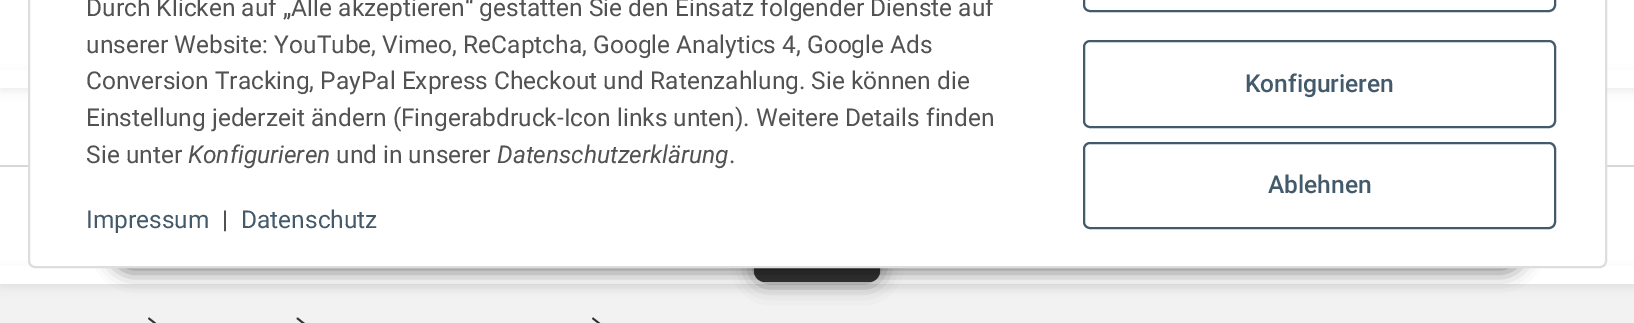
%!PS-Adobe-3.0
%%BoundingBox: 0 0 1634 323
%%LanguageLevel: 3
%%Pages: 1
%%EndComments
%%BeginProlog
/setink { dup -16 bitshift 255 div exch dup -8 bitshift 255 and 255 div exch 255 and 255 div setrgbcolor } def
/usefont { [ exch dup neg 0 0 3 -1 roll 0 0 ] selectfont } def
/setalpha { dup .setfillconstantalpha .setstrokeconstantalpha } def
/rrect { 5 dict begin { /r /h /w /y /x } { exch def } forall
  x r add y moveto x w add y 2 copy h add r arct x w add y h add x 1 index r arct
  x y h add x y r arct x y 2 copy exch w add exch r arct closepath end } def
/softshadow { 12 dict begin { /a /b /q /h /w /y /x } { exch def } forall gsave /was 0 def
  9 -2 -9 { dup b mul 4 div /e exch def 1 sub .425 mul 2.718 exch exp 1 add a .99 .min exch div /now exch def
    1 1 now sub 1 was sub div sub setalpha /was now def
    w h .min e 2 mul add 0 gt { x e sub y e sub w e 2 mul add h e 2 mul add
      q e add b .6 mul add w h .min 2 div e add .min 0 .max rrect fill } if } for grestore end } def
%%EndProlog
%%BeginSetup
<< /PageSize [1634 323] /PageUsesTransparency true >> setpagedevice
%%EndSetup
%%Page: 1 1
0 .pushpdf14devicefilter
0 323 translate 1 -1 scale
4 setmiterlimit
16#F2F2F2 setink
0 0 1634 323 rectfill
16#FFFFFF setink
0 0 1634 284 rectfill
16#D7D7D7 setink
0 165 1634 2 rectfill
gsave
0 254 moveto 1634 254 lineto 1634 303 lineto 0 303 lineto closepath 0 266 moveto 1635 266 lineto 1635 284 lineto 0 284 lineto closepath eoclip newpath
16#000000 setink
0 270 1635 17 0 5 0.07 softshadow
grestore
16#000000 setink
754 180 126 102 11 10.5 0.5 softshadow
16#323232 setink
754 180 126 102 11 rrect fill
16#000000 setink
109 217 1417 56 28 9 0.45 softshadow
gsave
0 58 moveto 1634 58 lineto 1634 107 lineto 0 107 lineto closepath 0 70 moveto 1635 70 lineto 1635 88 lineto 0 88 lineto closepath eoclip newpath
0 74 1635 17 0 5 0.07 softshadow
grestore
16#FFFFFF setink
29 -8 1577 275 6 rrect gsave fill grestore
16#DDDDDD setink
2 setlinewidth
stroke
/Roboto-Regular 24.5 usefont
16#525252 setink
[
    [(Durch Klicken auf „Alle akzeptieren“ gestatten Sie den Einsatz folgender Dienste auf) 86 16]
    [(unserer Website: YouTube, Vimeo, ReCaptcha, Google Analytics 4, Google Ads) 86 53]
    [(Conversion Tracking, PayPal Express Checkout und Ratenzahlung. Sie können die) 86 89]
    [(Einstellung jederzeit ändern \(Fingerabdruck-Icon links unten\). Weitere Details finden) 86 126]
    [(Sie unter) 86 163]
] { aload pop moveto show } forall
/Roboto-Italic 24.5 usefont
188 163 moveto (Konfigurieren) show
/Roboto-Regular 24.5 usefont
336 163 moveto (und in unserer) show
/Roboto-Italic 24.5 usefont
497 163 moveto (Datenschutzerklärung) show
/Roboto-Regular 24.5 usefont
729 163 moveto (.) show
16#435A6B setink
86 228 moveto (Impressum) show
16#525252 setink
222 228 moveto (|) show
16#435A6B setink
241 228 moveto (Datenschutz) show
1084 -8 471 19 6 rrect stroke
1084 41 471 86 6 rrect stroke
/Roboto-Medium 24.5 usefont
1245 92 moveto (Konfigurieren) show
1084 143 471 85 6 rrect stroke
1268 193 moveto (Ablehnen) show
16#323232 setink
1.8 setlinewidth
1 setlinecap
1 setlinejoin
149 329 moveto 156 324 lineto 149 318.5 lineto stroke
297.5 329 moveto 304.5 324 lineto 297.5 318.5 lineto stroke
593 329 moveto 600 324 lineto 593 318.5 lineto stroke
.poppdf14devicefilter showpage
%%EOF
